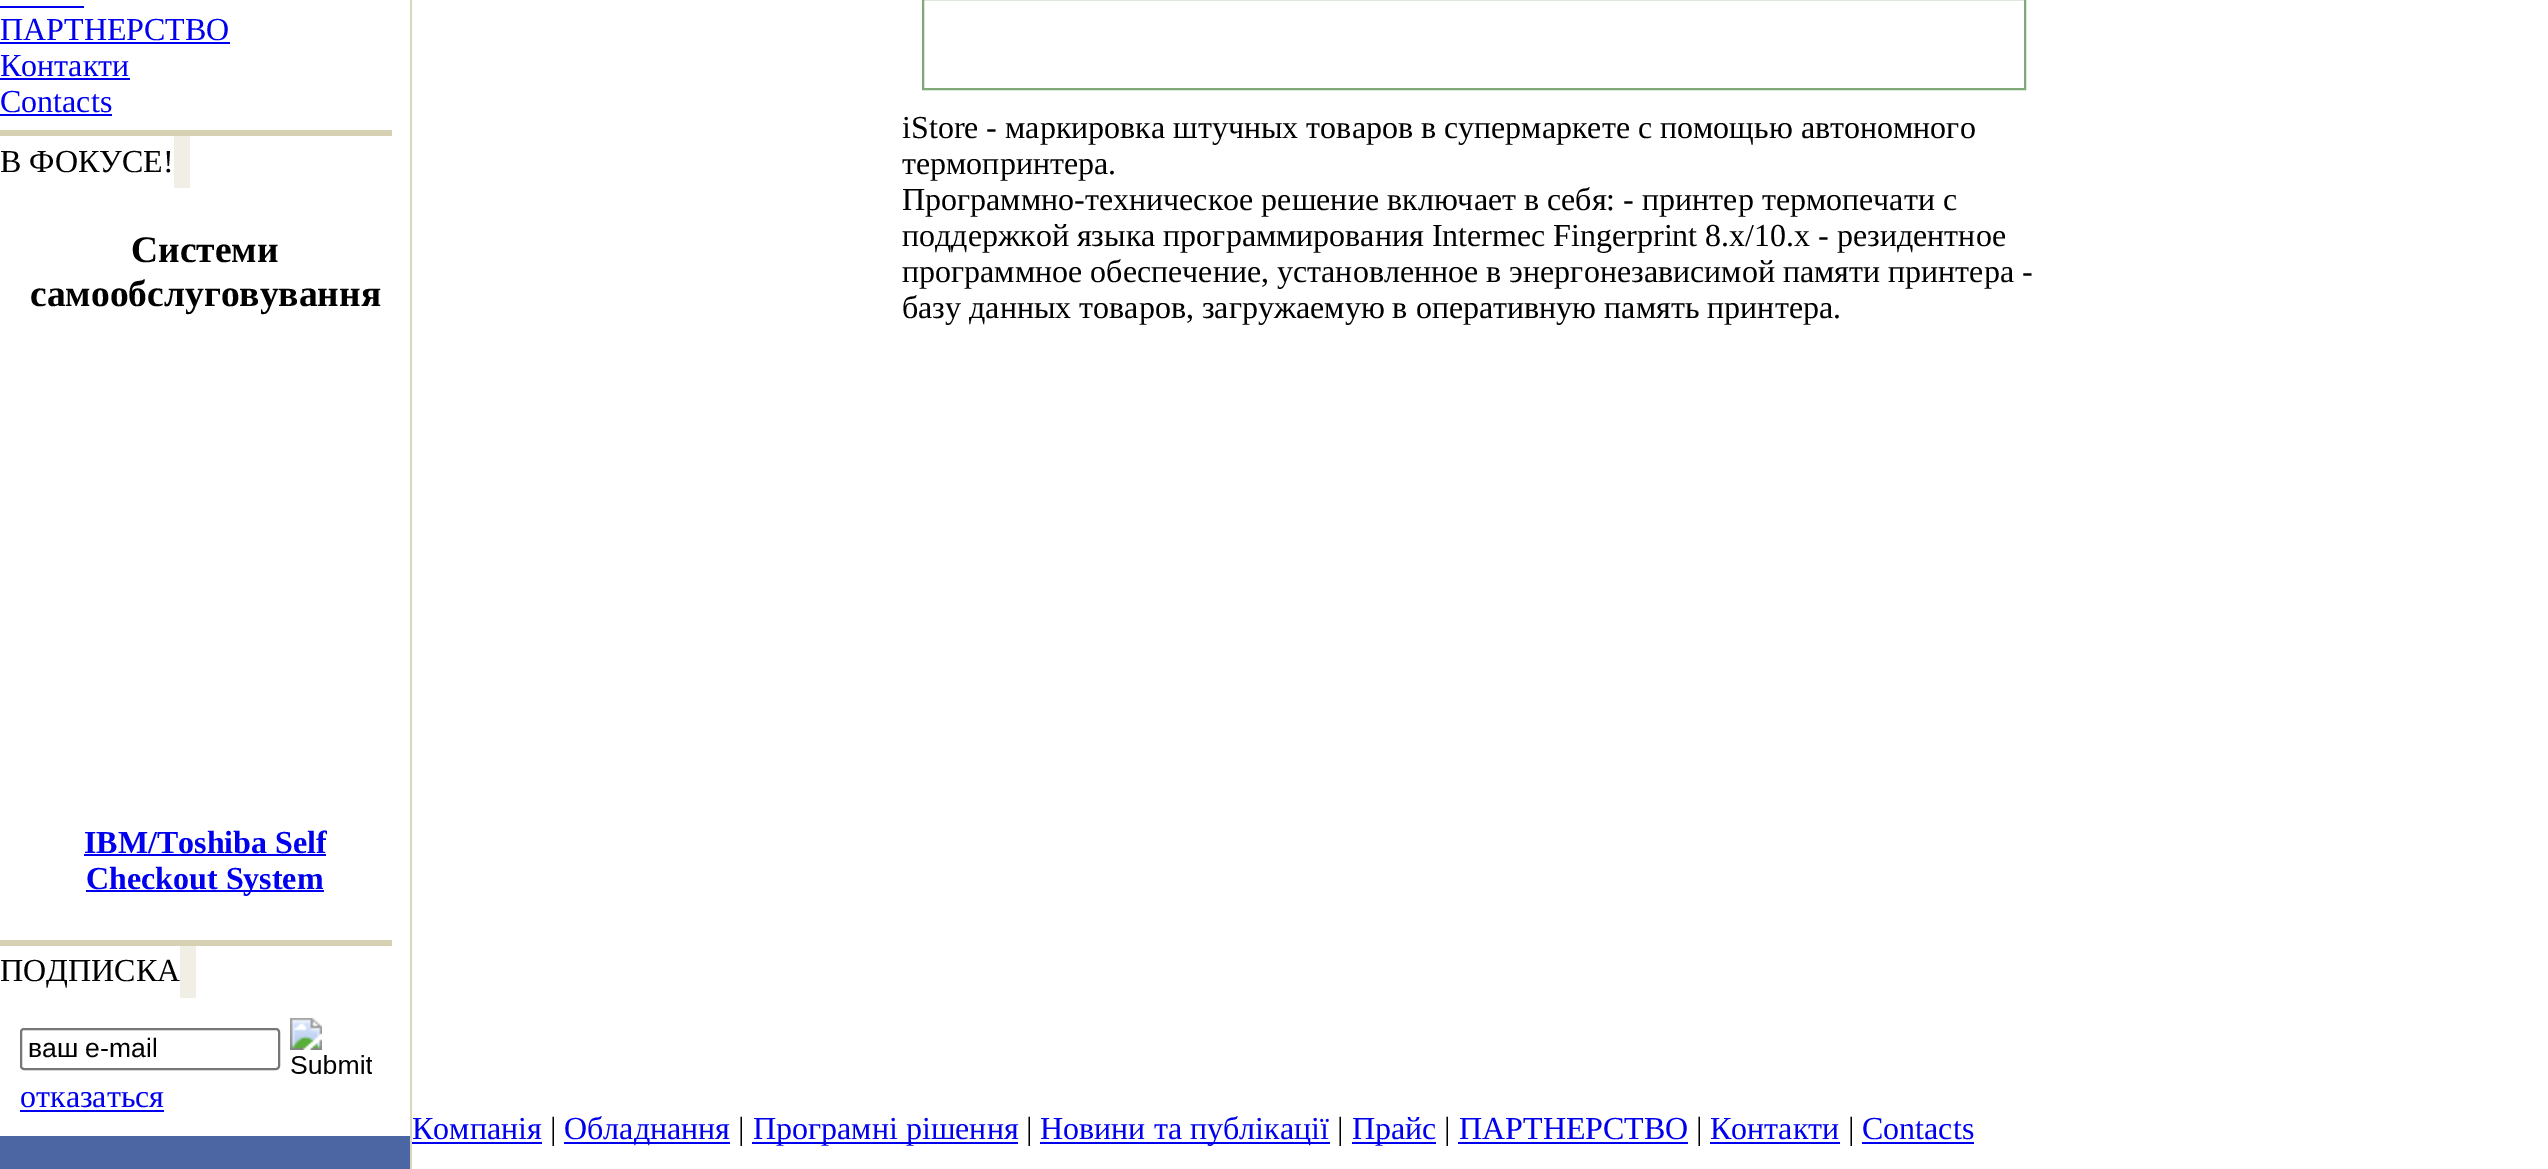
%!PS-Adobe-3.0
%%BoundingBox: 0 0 2548 1169
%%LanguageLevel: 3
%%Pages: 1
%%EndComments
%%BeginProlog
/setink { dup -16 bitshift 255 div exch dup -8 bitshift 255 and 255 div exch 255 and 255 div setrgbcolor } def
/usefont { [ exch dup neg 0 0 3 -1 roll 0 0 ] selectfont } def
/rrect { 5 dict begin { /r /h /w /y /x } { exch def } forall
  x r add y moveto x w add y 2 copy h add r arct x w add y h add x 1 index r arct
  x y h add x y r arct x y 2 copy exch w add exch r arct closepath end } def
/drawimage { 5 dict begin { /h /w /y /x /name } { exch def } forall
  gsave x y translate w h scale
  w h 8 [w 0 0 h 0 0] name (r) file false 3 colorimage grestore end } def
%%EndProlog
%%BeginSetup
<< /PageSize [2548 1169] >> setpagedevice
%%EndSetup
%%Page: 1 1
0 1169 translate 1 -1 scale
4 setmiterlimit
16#FFFFFF setink
0 0 2548 1169 rectfill
16#D9D6BF setink
410 0 2 1169 rectfill
16#0000EE setink
0 6 84 2 rectfill
/LiberationSerif-Regular 32 usefont
0 40 moveto (ПАРТНЕРСТВО) show
0 42 230 2 rectfill
0 76 moveto (Контакти) show
0 78 130 2 rectfill
0 112 moveto (Contacts) show
0 114 112 2 rectfill
16#D5D1B2 setink
0 130 392 6 rectfill
16#000000 setink
0 172 moveto (В ФОКУСЕ!) show
16#F1EFE5 setink
174 136 16 52 rectfill
/LiberationSerif-Bold 37.5 usefont
16#000000 setink
131 262 moveto (Системи) show
30 306 moveto (самообслуговування) show
/LiberationSerif-Bold 32 usefont
16#0000EE setink
84 853 moveto (IBM/Toshiba Self) show
84 854 242 2 rectfill
86 890 238 2 rectfill
86 889 moveto (Checkout System) show
16#D5D1B2 setink
0 940 392 6 rectfill
/LiberationSerif-Regular 32 usefont
16#000000 setink
0 981 moveto (ПОДПИСКА) show
16#F1EFE5 setink
180 946 16 52 rectfill
16#767676 setink
2 setlinewidth
21 1029 258 40 3 rrect stroke
/LiberationSans-Regular 26.5 usefont
16#000000 setink
28 1057 moveto (ваш e-mail) show
(img1.raw) 290 1018 82 56 drawimage
/LiberationSerif-Regular 32 usefont
16#0000EE setink
20 1107 moveto (отказаться) show
20 1110 144 2 rectfill
16#4C66A3 setink
0 1136 410 33 rectfill
16#81A879 setink
923 -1 1102 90 rectstroke
16#000000 setink
[
    [(iStore - маркировка штучных товаров в супермаркете с помощью автономного) 902 138]
    [(термопринтера.) 902 174]
    [(Программно-техническое решение включает в себя: - принтер термопечати с) 902 210]
    [(поддержкой языка программирования Intermec Fingerprint 8.x/10.x - резидентное) 902 246]
    [(программное обеспечение, установленное в энергонезависимой памяти принтера -) 902 282]
    [(базу данных товаров, загружаемую в оперативную память принтера.) 902 318]
] { aload pop moveto show } forall
16#0000EE setink
412 1139 moveto (Компанія) show
412 1142 130 2 rectfill
16#000000 setink
550 1139 moveto (|) show
16#0000EE setink
564 1142 166 2 rectfill
564 1139 moveto (Обладнання) show
16#000000 setink
738 1139 moveto (|) show
16#0000EE setink
752 1142 266 2 rectfill
753 1139 moveto (Програмні рішення) show
16#000000 setink
1026 1139 moveto (|) show
16#0000EE setink
1040 1142 290 2 rectfill
1040 1139 moveto (Новини та публікації) show
16#000000 setink
1337 1139 moveto (|) show
16#0000EE setink
1352 1142 84 2 rectfill
1352 1139 moveto (Прайс) show
16#000000 setink
1444 1139 moveto (|) show
16#0000EE setink
1459 1139 moveto (ПАРТНЕРСТВО) show
1458 1142 230 2 rectfill
16#000000 setink
1696 1139 moveto (|) show
16#0000EE setink
1710 1139 moveto (Контакти) show
1710 1142 130 2 rectfill
16#000000 setink
1848 1139 moveto (|) show
16#0000EE setink
1862 1139 moveto (Contacts) show
1862 1142 112 2 rectfill
showpage
%%EOF
